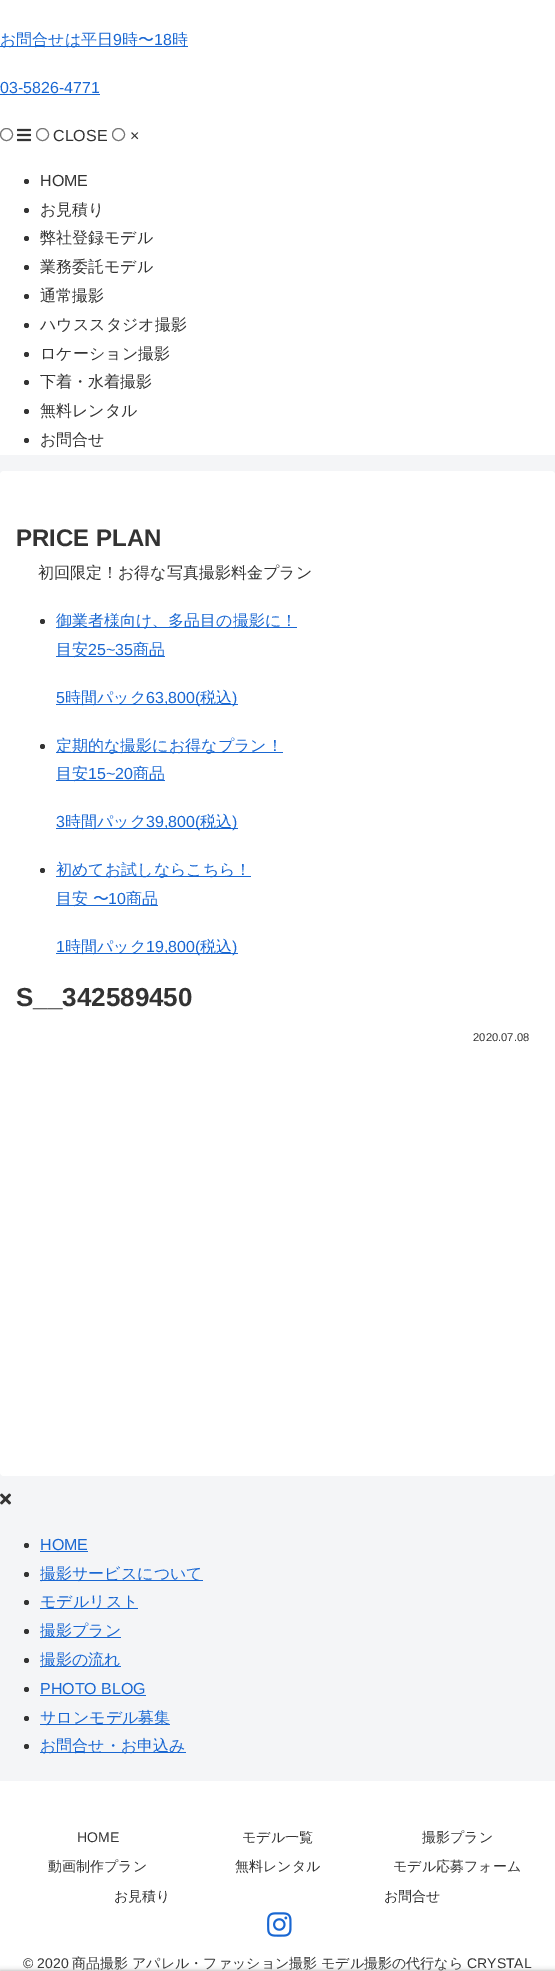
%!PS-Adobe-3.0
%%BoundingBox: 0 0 555 1971
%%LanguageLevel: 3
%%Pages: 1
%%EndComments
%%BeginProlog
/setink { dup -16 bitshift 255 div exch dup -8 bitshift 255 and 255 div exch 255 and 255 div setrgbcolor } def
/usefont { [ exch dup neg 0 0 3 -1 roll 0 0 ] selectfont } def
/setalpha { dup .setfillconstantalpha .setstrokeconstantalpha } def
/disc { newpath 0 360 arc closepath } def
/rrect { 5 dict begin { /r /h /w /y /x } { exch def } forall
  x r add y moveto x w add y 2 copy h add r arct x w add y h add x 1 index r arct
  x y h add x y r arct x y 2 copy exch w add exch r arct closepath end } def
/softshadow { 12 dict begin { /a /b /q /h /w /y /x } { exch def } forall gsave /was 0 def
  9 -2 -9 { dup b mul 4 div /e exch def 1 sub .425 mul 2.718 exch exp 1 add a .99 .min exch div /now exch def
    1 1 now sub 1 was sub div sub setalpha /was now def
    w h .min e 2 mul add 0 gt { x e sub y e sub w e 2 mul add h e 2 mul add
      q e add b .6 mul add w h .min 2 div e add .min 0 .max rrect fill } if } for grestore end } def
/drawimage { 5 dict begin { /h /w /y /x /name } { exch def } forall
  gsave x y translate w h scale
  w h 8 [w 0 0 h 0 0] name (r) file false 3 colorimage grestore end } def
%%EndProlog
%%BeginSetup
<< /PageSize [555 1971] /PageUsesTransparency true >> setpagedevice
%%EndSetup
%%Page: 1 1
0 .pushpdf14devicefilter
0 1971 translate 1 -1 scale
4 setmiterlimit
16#F4F5F7 setink
0 0 555 1971 rectfill
16#FFFFFF setink
0 0 555 455 rectfill
16#1967D2 setink
0 46 188 1 rectfill
/WenQuanYiZenHei-Medium 16 usefont
0 45 moveto (お問合せは平日) show
/LiberationSans-Regular 16 usefont
113 45 moveto (9) show
/WenQuanYiZenHei-Medium 16 usefont
122 45 moveto (時〜) show
/LiberationSans-Regular 16 usefont
154 45 moveto (18) show
/WenQuanYiZenHei-Medium 16 usefont
172 45 moveto (時) show
/LiberationSans-Regular 16 usefont
0 93 moveto (03-5826-4771) show
0 94 100 1 rectfill
16#767676 setink
6.5 134.5 6 disc stroke
(img1.raw) 17 128 14 14 drawimage
42.5 134.5 6 disc stroke
16#333333 setink
53 141 moveto (CLOSE) show
16#767676 setink
118.5 134.5 6 disc stroke
16#333333 setink
130 141 moveto (×) show
26.5 181.5 2.5 disc fill
40 186 moveto (HOME) show
26.5 210.5 2.5 disc fill
/WenQuanYiZenHei-Medium 16 usefont
40 215 moveto (お見積り) show
26.5 238.5 2.5 disc fill
40 243 moveto (弊社登録モデル) show
26.5 267.5 2.5 disc fill
40 272 moveto (業務委託モデル) show
26.5 296.5 2.5 disc fill
40 301 moveto (通常撮影) show
26.5 325.5 2.5 disc fill
40 330 moveto (ハウススタジオ撮影) show
26.5 354.5 2.5 disc fill
40 359 moveto (ロケーション撮影) show
26.5 382.5 2.5 disc fill
40 387 moveto (下着・水着撮影) show
26.5 411.5 2.5 disc fill
40 416 moveto (無料レンタル) show
26.5 440.5 2.5 disc fill
40 445 moveto (お問合せ) show
16#FFFFFF setink
0 471 555 1005 4 rrect fill
/LiberationSans-Bold 24 usefont
16#333333 setink
16 546 moveto (PRICE PLAN) show
/WenQuanYiZenHei-Medium 16 usefont
38 578 moveto (初回限定！お得な写真撮影料金プラン) show
42.5 621.5 2.5 disc fill
16#1967D2 setink
56 627 241 1 rectfill
56 626 moveto (御業者様向け、多品目の撮影に！) show
56 656 109 1 rectfill
56 655 moveto (目安) show
/LiberationSans-Regular 16 usefont
88 655 moveto (25~35) show
/WenQuanYiZenHei-Medium 16 usefont
133 655 moveto (商品) show
/LiberationSans-Regular 16 usefont
56 703 moveto (5) show
56 704 182 1 rectfill
/WenQuanYiZenHei-Medium 16 usefont
65 703 moveto (時間パック) show
/LiberationSans-Regular 16 usefont
146 703 moveto (63,800\() show
/WenQuanYiZenHei-Medium 16 usefont
200 703 moveto (税込) show
/LiberationSans-Regular 16 usefont
232 703 moveto (\)) show
16#333333 setink
42.5 746.5 2.5 disc fill
16#1967D2 setink
56 752 227 1 rectfill
/WenQuanYiZenHei-Medium 16 usefont
56 751 moveto (定期的な撮影にお得なプラン！) show
56 780 109 1 rectfill
56 779 moveto (目安) show
/LiberationSans-Regular 16 usefont
88 779 moveto (15~20) show
/WenQuanYiZenHei-Medium 16 usefont
133 779 moveto (商品) show
/LiberationSans-Regular 16 usefont
56 827 moveto (3) show
56 828 182 1 rectfill
/WenQuanYiZenHei-Medium 16 usefont
65 827 moveto (時間パック) show
/LiberationSans-Regular 16 usefont
146 827 moveto (39,800\() show
/WenQuanYiZenHei-Medium 16 usefont
200 827 moveto (税込) show
/LiberationSans-Regular 16 usefont
232 827 moveto (\)) show
16#333333 setink
42.5 870.5 2.5 disc fill
16#1967D2 setink
56 876 195 1 rectfill
/WenQuanYiZenHei-Medium 16 usefont
56 875 moveto (初めてお試しならこちら！) show
56 905 102 1 rectfill
56 904 moveto (目安 〜) show
/LiberationSans-Regular 16 usefont
108 904 moveto (10) show
/WenQuanYiZenHei-Medium 16 usefont
126 904 moveto (商品) show
/LiberationSans-Regular 16 usefont
56 952 moveto (1) show
56 953 182 1 rectfill
/WenQuanYiZenHei-Medium 16 usefont
65 952 moveto (時間パック) show
/LiberationSans-Regular 16 usefont
146 952 moveto (19,800\() show
/WenQuanYiZenHei-Medium 16 usefont
200 952 moveto (税込) show
/LiberationSans-Regular 16 usefont
232 952 moveto (\)) show
/LiberationSans-Bold 26 usefont
16#333333 setink
16 1006 moveto (S__342589450) show
/LiberationSans-Regular 11.25 usefont
473 1041 moveto (2020.07.08) show
(img2.raw) 0 1493 11 12 drawimage
26.5 1545.5 2.5 disc fill
/LiberationSans-Regular 16 usefont
16#1967D2 setink
40 1550 moveto (HOME) show
40 1551 48 1 rectfill
16#333333 setink
26.5 1574.5 2.5 disc fill
16#1967D2 setink
40 1580 163 1 rectfill
/WenQuanYiZenHei-Medium 16 usefont
40 1579 moveto (撮影サービスについて) show
16#333333 setink
26.5 1602.5 2.5 disc fill
16#1967D2 setink
40 1608 98 1 rectfill
40 1607 moveto (モデルリスト) show
16#333333 setink
26.5 1631.5 2.5 disc fill
16#1967D2 setink
40 1637 81 1 rectfill
40 1636 moveto (撮影プラン) show
16#333333 setink
26.5 1660.5 2.5 disc fill
16#1967D2 setink
40 1666 81 1 rectfill
40 1665 moveto (撮影の流れ) show
16#333333 setink
26.5 1689.5 2.5 disc fill
/LiberationSans-Regular 16 usefont
16#1967D2 setink
40 1694 moveto (PHOTO BLOG) show
40 1695 106 1 rectfill
16#333333 setink
26.5 1718.5 2.5 disc fill
16#1967D2 setink
40 1724 130 1 rectfill
/WenQuanYiZenHei-Medium 16 usefont
40 1723 moveto (サロンモデル募集) show
16#333333 setink
26.5 1746.5 2.5 disc fill
16#1967D2 setink
40 1752 146 1 rectfill
40 1751 moveto (お問合せ・お申込み) show
16#FFFFFF setink
0 1781 555 190 rectfill
/LiberationSans-Regular 14 usefont
16#333333 setink
77 1842 moveto (HOME) show
/WenQuanYiZenHei-Medium 14 usefont
[
    [(モデル一覧) 242 1842]
    [(撮影プラン) 422 1842]
    [(動画制作プラン) 48 1871]
    [(無料レンタル) 235 1871]
    [(モデル応募フォーム) 393 1871]
    [(お見積り) 114 1901]
    [(お問合せ) 384 1901]
] { aload pop moveto show } forall
(img3.raw) 267 1912 25 25 drawimage
/LiberationSans-Regular 14 usefont
23 1968 moveto (© 2020) show
/WenQuanYiZenHei-Medium 14 usefont
[
    [(商品撮影) 72 1968]
    [(アパレル・ファッション撮影) 132 1968]
    [(モデル撮影の代行なら) 321 1968]
] { aload pop moveto show } forall
/LiberationSans-Regular 14 usefont
467 1968 moveto (CRYSTAL) show
16#A9A9A9 setink
0 1971 555 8 0 2.5 1 softshadow
.poppdf14devicefilter showpage
%%EOF
